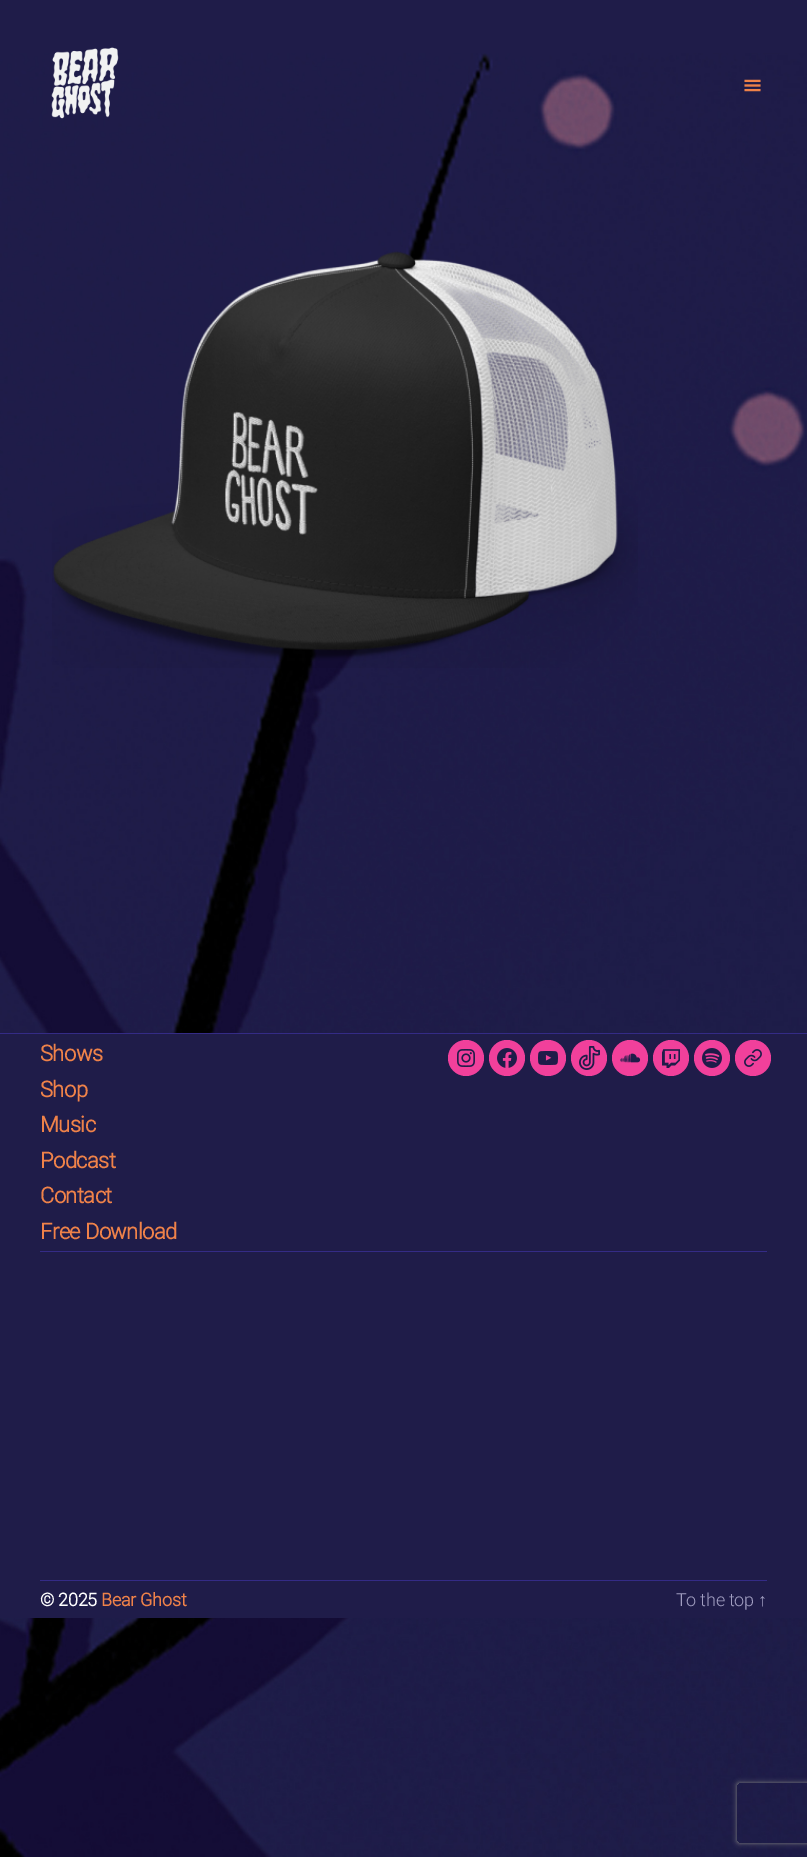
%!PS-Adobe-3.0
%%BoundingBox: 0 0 807 1857
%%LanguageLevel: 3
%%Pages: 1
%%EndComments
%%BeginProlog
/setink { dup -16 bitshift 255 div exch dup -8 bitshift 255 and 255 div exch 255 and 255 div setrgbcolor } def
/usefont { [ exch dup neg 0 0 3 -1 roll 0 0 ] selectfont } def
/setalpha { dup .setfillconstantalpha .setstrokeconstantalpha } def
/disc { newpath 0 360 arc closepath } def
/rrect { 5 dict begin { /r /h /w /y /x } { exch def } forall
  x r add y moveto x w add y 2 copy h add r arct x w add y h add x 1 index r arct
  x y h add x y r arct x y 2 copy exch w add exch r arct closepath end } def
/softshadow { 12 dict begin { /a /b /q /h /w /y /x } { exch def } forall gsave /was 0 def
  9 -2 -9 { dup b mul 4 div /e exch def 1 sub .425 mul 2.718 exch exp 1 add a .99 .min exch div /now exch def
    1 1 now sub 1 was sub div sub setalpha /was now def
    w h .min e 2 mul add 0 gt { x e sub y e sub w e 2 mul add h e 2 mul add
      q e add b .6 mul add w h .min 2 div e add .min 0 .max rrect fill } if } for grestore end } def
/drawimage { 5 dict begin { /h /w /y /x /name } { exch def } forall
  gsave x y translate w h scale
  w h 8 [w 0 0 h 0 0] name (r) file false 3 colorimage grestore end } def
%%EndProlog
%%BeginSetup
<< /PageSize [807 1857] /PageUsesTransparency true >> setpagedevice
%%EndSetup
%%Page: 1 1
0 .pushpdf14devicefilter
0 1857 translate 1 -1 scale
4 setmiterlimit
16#1F1C49 setink
0 0 807 1857 rectfill
(img1.raw) 0 53 807 1804 drawimage
(img2.raw) 51 47 68 72 drawimage
(img3.raw) 744 79 17 13 drawimage
(img4.raw) 52 251 586 417 drawimage
[
    [0 1034 807 584 16#1F1C49]
    [0 1033 807 1 16#342B86]
    [40 1251 727 1 16#342B86]
] { aload pop setink rectfill } forall
/Roboto-Bold 22 usefont
16#EF8249 setink
40 1061 moveto -0.6 0 (Shows) ashow
40 1097 moveto -0.6 0 (Shop) ashow
40 1132 moveto -0.6 0 (Music) ashow
40 1168 moveto -0.6 0 (Podcast) ashow
40 1203 moveto -0.6 0 (Contact) ashow
40 1239 moveto -0.6 0 (Free Download) ashow
16#F1409B setink
466 1058 18 disc fill
(img5.raw) 457 1049 18 18 drawimage
507 1058 18 disc fill
(img6.raw) 497 1048 20 20 drawimage
548 1058 18 disc fill
(img7.raw) 538 1051 20 14 drawimage
589 1058 18 disc fill
(img8.raw) 579 1046 21 24 drawimage
630 1058 18 disc fill
(img9.raw) 620 1053 21 10 drawimage
671 1058 18 disc fill
(img10.raw) 662 1049 18 19 drawimage
712 1058 18 disc fill
(img11.raw) 702 1048 20 20 drawimage
753 1058 18 disc fill
(img12.raw) 744 1049 18 18 drawimage
16#342B86 setink
40 1580 727 1 rectfill
/Roboto-Bold 18 usefont
16#FFFFFF setink
40 1606 moveto -0.25 0 (© 2025) ashow
16#EF8249 setink
101 1606 moveto -0.25 0 (Bear Ghost) ashow
/Roboto-Light 18 usefont
16#A19EC1 setink
676 1606 moveto -0.25 0 (To the top) ashow
/LiberationSans-Regular 18 usefont
758 1606 moveto -0.25 0 (↑) ashow
gsave
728 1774 moveto 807 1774 lineto 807 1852 lineto 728 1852 lineto closepath 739 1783 moveto 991 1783 lineto 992 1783 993 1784 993 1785 curveto 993 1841 lineto 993 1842 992 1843 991 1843 curveto 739 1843 lineto 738 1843 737 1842 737 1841 curveto 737 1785 lineto 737 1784 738 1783 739 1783 curveto closepath eoclip newpath
16#808080 setink
737 1783 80 60 2 2.5 1 softshadow
grestore
.poppdf14devicefilter showpage
%%EOF
